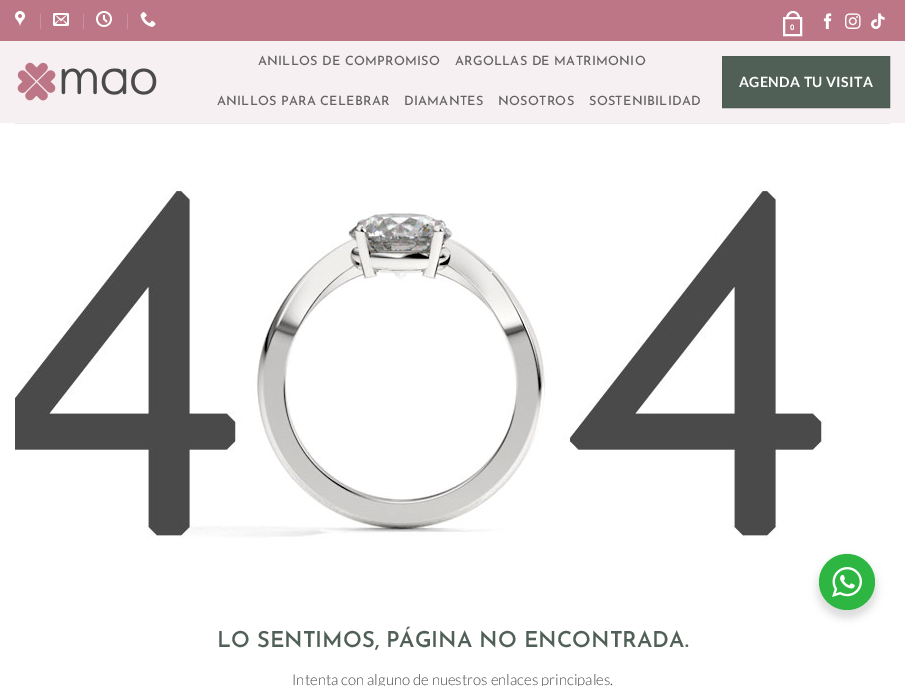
%!PS-Adobe-3.0
%%BoundingBox: 0 0 905 686
%%LanguageLevel: 3
%%Pages: 1
%%EndComments
%%BeginProlog
/setink { dup -16 bitshift 255 div exch dup -8 bitshift 255 and 255 div exch 255 and 255 div setrgbcolor } def
/usefont { [ exch dup neg 0 0 3 -1 roll 0 0 ] selectfont } def
/setalpha { dup .setfillconstantalpha .setstrokeconstantalpha } def
/disc { newpath 0 360 arc closepath } def
/rrect { 5 dict begin { /r /h /w /y /x } { exch def } forall
  x r add y moveto x w add y 2 copy h add r arct x w add y h add x 1 index r arct
  x y h add x y r arct x y 2 copy exch w add exch r arct closepath end } def
/softshadow { 12 dict begin { /a /b /q /h /w /y /x } { exch def } forall gsave /was 0 def
  9 -2 -9 { dup b mul 4 div /e exch def 1 sub .425 mul 2.718 exch exp 1 add a .99 .min exch div /now exch def
    1 1 now sub 1 was sub div sub setalpha /was now def
    w h .min e 2 mul add 0 gt { x e sub y e sub w e 2 mul add h e 2 mul add
      q e add b .6 mul add w h .min 2 div e add .min 0 .max rrect fill } if } for grestore end } def
/drawimage { 5 dict begin { /h /w /y /x /name } { exch def } forall
  gsave x y translate w h scale
  w h 8 [w 0 0 h 0 0] name (r) file false 3 colorimage grestore end } def
%%EndProlog
%%BeginSetup
<< /PageSize [905 686] /PageUsesTransparency true >> setpagedevice
%%EndSetup
%%Page: 1 1
0 .pushpdf14devicefilter
0 686 translate 1 -1 scale
4 setmiterlimit
16#FFFFFF setink
0 0 905 686 rectfill
16#BC7685 setink
0 0 905 41 rectfill
(img1.raw) 15 11 10 16 drawimage
16#C9919D setink
40 14 1 15 rectfill
(img2.raw) 53 13 16 13 drawimage
83 14 1 15 rectfill
(img3.raw) 96 11 16 16 drawimage
127 14 1 15 rectfill
(img4.raw) 140 12 16 15 drawimage
16#FFFFFF setink
2 setlinewidth
784 18 17 17 rectstroke
793 11 moveto 797.5 11 800 15 800 19 curveto 786 19 lineto 786 15 788.5 11 793 11 curveto closepath 793 13 moveto 796.5 13 798 16 798 19 curveto 788 19 lineto 788 16 789.5 13 793 13 curveto closepath eofill
/LiberationSans-Bold 8 usefont
790 30 moveto (0) show
(img5.raw) 823 13 9 16 drawimage
(img6.raw) 845 13 16 16 drawimage
(img7.raw) 871 13 14 16 drawimage
16#F7F0F3 setink
0 41 905 82 rectfill
(img8.raw) 17 62 140 39 drawimage
/JosefinSans-Medium 12.75 usefont
16#646363 setink
258 65 moveto 0.25 0 (ANILLOS DE COMPROMISO) ashow
455 65 moveto 0.25 0 (ARGOLLAS DE MATRIMONIO) ashow
217 105 moveto 0.25 0 (ANILLOS PARA CELEBRAR) ashow
404 105 moveto 0.25 0 (DIAMANTES) ashow
498 105 moveto 0.25 0 (NOSOTROS) ashow
589 105 moveto 0.25 0 (SOSTENIBILIDAD) ashow
16#516057 setink
722.5 56.5 moveto 889.5 56.5 lineto 889.5 107.5 lineto 722.5 107.5 lineto closepath gsave fill grestore
16#4D5B53 setink
1 setlinewidth
stroke
/Lato-Bold 14 usefont
16#FFFFFF setink
739 87 moveto 0.4 0 (AGENDA TU VISITA) ashow
16#EDEDED setink
15 123 875 1 rectfill
(img9.raw) 15 187 812 352 drawimage
/JosefinSans-SemiBold 22 usefont
16#516057 setink
217 647 moveto (LO SENTIMOS, PÁGINA NO ENCONTRADA.) show
/Lato-Light 15 usefont
16#4D4A4A setink
292 685 moveto (Intenta con alguno de nuestros enlaces principales.) show
16#000000 setink
817 558 60 60 30 4 0.14 softshadow
16#2DB742 setink
847 582 28 disc fill
(img10.raw) 832 567 30 30 drawimage
.poppdf14devicefilter showpage
%%EOF
